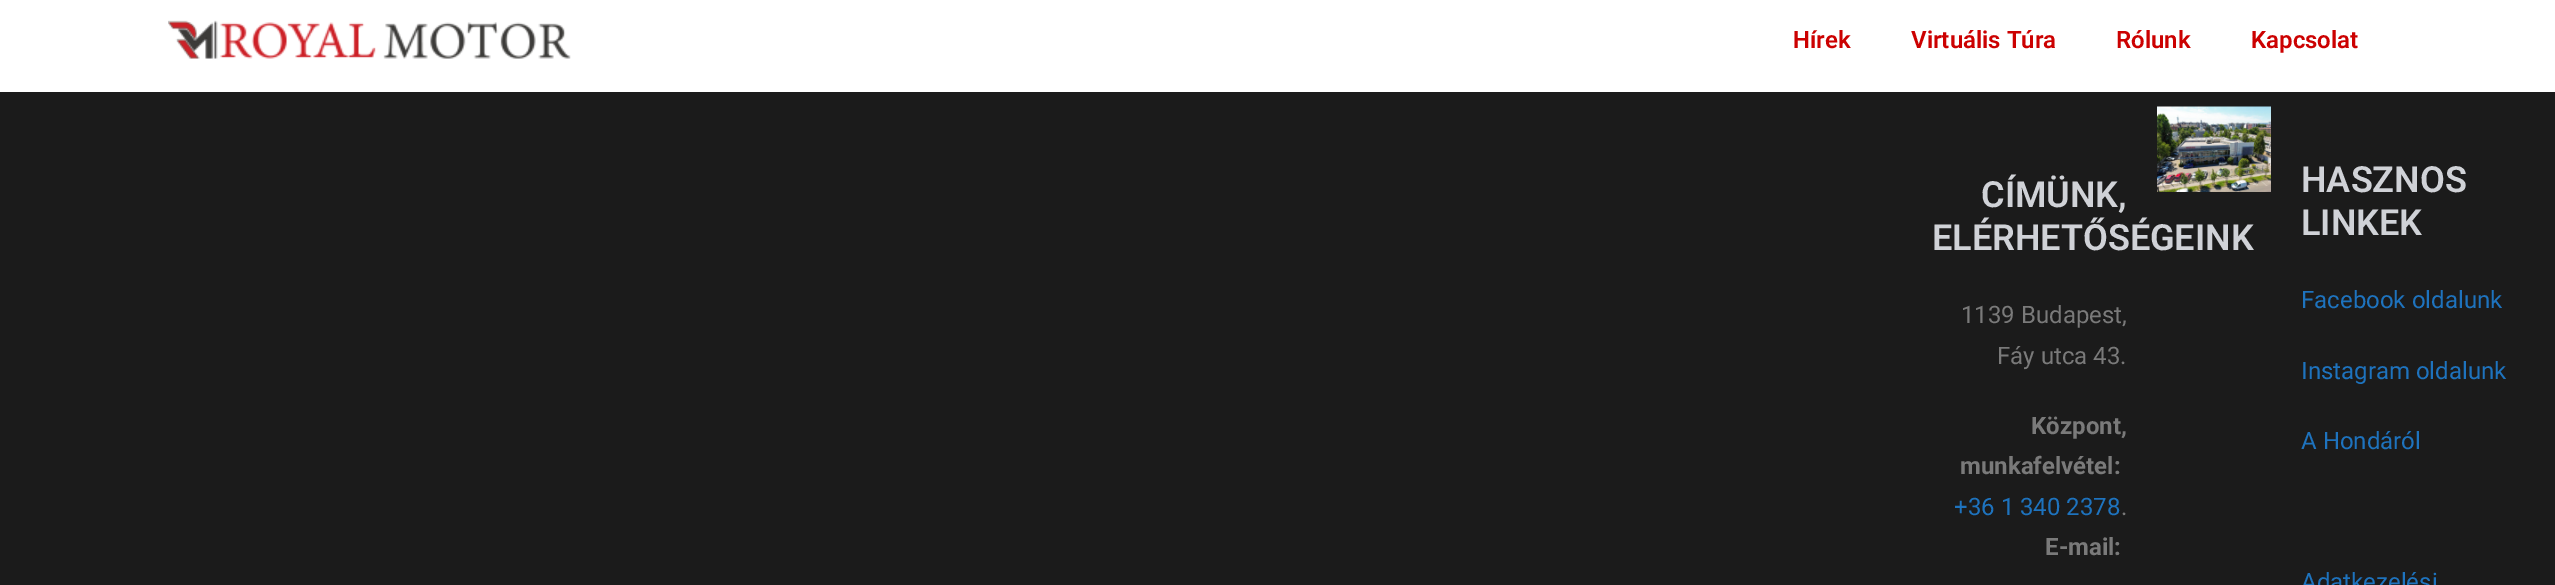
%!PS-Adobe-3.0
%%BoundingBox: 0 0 2555 585
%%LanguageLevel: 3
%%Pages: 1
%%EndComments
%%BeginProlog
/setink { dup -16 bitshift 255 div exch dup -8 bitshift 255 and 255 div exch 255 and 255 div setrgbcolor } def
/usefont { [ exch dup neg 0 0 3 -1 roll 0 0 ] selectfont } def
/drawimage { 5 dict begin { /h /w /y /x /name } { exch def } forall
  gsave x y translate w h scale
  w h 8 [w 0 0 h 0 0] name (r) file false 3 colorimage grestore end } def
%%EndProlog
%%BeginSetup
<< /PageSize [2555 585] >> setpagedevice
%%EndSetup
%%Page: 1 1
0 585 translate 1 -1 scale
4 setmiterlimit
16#1B1B1B setink
0 0 2555 585 rectfill
16#FFFFFF setink
0 0 2555 92 rectfill
(img1.raw) 168 20 403 39 drawimage
/Roboto-SemiBold 24 usefont
16#CC0101 setink
[
    [(Hírek) 1793 48]
    [(Virtuális Túra) 1911 48]
    [(Rólunk) 2116 48]
    [(Kapcsolat) 2251 48]
] { aload pop moveto show } forall
(img2.raw) 2157 106 114 86 drawimage
/Roboto-SemiBold 36 usefont
16#D0D2D7 setink
1981 207 moveto (CÍMÜNK,) show
1932 250 moveto (ELÉRHETŐSÉGEINK) show
/Roboto-Regular 24 usefont
16#7A7A7A setink
1961 323 moveto (1139 Budapest,) show
1997 364 moveto (Fáy utca 43.) show
/Roboto-Bold 24 usefont
2031 434 moveto (Központ,) show
1960 474 moveto (munkafelvétel:) show
/Roboto-Regular 24 usefont
16#1E73BE setink
1954 515 moveto (+36 1 340 2378) show
16#7A7A7A setink
2121 515 moveto (.) show
/Roboto-Bold 24 usefont
2045 555 moveto (E-mail:) show
/Roboto-SemiBold 36 usefont
16#D0D2D7 setink
2301 192 moveto (HASZNOS) show
2301 235 moveto (LINKEK) show
/Roboto-Regular 24 usefont
16#1E73BE setink
[
    [(Facebook oldalunk) 2301 308]
    [(Instagram oldalunk) 2301 379]
    [(A Hondáról) 2301 449]
    [(Adatkezelési) 2301 590]
] { aload pop moveto show } forall
showpage
%%EOF
